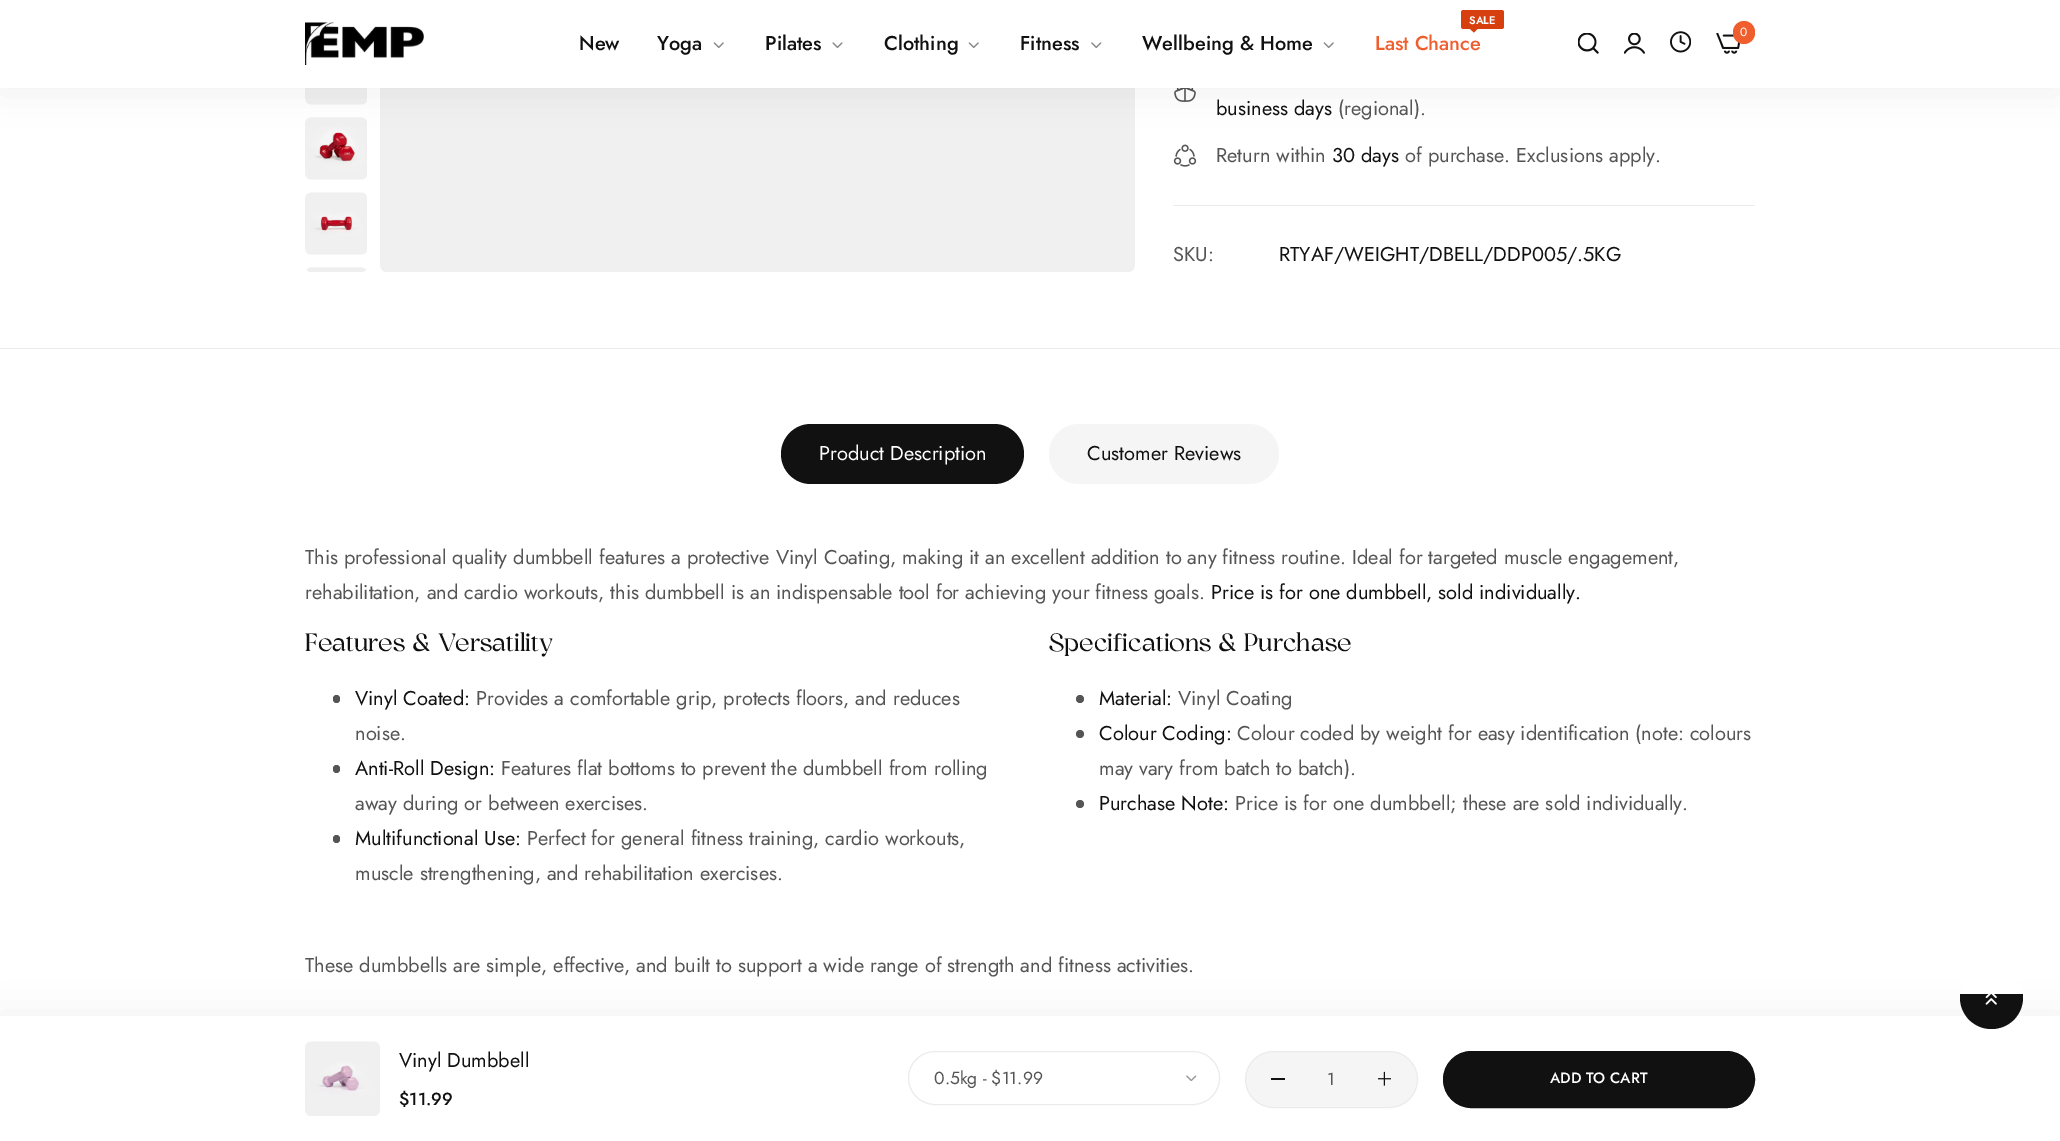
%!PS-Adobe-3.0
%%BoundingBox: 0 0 2060 1141
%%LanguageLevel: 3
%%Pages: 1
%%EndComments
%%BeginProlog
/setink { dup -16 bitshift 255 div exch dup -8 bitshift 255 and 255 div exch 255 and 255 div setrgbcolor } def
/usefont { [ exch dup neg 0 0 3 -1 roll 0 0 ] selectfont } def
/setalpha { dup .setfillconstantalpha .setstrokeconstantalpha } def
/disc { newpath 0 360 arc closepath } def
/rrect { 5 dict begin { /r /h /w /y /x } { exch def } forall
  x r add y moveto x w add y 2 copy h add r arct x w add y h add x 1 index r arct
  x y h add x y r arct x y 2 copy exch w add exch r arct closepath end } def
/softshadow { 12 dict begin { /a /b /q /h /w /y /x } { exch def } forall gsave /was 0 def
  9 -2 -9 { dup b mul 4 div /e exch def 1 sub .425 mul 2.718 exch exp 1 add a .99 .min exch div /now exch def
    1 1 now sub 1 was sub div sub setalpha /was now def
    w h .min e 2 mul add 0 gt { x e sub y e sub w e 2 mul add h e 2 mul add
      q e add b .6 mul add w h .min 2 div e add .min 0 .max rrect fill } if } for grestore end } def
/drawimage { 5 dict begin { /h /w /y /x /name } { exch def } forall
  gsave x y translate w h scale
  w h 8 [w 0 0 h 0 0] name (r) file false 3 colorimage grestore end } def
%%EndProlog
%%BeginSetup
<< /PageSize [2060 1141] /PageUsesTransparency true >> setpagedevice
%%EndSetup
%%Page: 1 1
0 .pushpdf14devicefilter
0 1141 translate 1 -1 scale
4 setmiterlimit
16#FFFFFF setink
0 0 2060 1141 rectfill
(img9.raw) 305 88 62 17 drawimage
(img10.raw) 305 117 62 63 drawimage
(img13.raw) 380 88 755 184 drawimage
(img14.raw) 1174 88 22 14 drawimage
(img15.raw) 1173 144 24 23 drawimage
16#000000 setink
0 6 2060 88 0 19 0.05 softshadow
16#FFFFFF setink
0 0 2060 88 rectfill
(img1.raw) 305 22 119 43 drawimage
/Jost-Medium 20 usefont
16#111111 setink
579 50 moveto (New) show
657 50 moveto (Yoga) show
(img2.raw) 713 42 11 6 drawimage
765 50 moveto (Pilates) show
(img3.raw) 832 42 11 6 drawimage
884 50 moveto (Clothing) show
(img2.raw) 968 42 11 6 drawimage
1020 50 moveto (Fitness) show
(img4.raw) 1091 42 11 6 drawimage
1142 50 moveto (Wellbeing & Home) show
(img2.raw) 1323 42 11 6 drawimage
16#D73F0F setink
1461 10 43 19 2.5 rrect fill
/Jost-SemiBold 11 usefont
16#FFFFFF setink
1469 24 moveto (SALE) show
16#D73F0F setink
1470 29 moveto 1477.5 29 lineto 1474 32.5 lineto closepath fill
/Jost-Medium 20 usefont
16#F05E2D setink
1375 50 moveto (Last Chance) show
(img5.raw) 1578 33 21 21 drawimage
(img6.raw) 1624 33 21 21 drawimage
(img7.raw) 1670 31 21 22 drawimage
(img8.raw) 1716 33 24 21 drawimage
1733 21 22 23 11 rrect fill
/Jost-Regular 12 usefont
16#FFFFFF setink
1740 36 moveto (0) show
(img11.raw) 305 192 62 63 drawimage
(img12.raw) 306 267 60 5 drawimage
/Jost-Regular 20 usefont
16#111111 setink
1216 115 moveto (business days) show
16#555555 setink
1338 115 moveto (\(regional\).) show
1216 162 moveto (Return within) show
16#111111 setink
1332 162 moveto (30 days) show
16#555555 setink
1405 162 moveto (of purchase. Exclusions apply.) show
16#EBEBEB setink
1173 205 582 1 rectfill
16#555555 setink
1173 261 moveto (SKU:) show
16#111111 setink
1279 261 moveto (RTYAF/WEIGHT/DBELL/DDP005/.5KG) show
16#000000 setink
0 1023 2060 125 0 19 0.08 softshadow
16#FFFFFF setink
0 1016 2060 125 rectfill
(img16.raw) 305 1041 75 75 drawimage
16#111111 setink
399 1067 moveto (Vinyl Dumbbell) show
/Jost-Medium 17.5 usefont
399 1105 moveto ($11.99) show
(img17.raw) 1186 1075 11 6 drawimage
16#EBEBEB setink
908.5 1051.5 311 53 26.5 rrect stroke
/Jost-Regular 17.5 usefont
16#555555 setink
934 1084 moveto (0.5kg - $11.99) show
16#F5F5F5 setink
1245.5 1051.5 172 56 28 rrect gsave fill grestore
16#EBEBEB setink
stroke
16#111111 setink
1271 1078 14 2 rectfill
16#555555 setink
1327 1085 moveto (1) show
(img18.raw) 1378 1071 13 15 drawimage
16#111111 setink
1443.5 1051.5 311 56 28 rrect gsave fill grestore
stroke
/Jost-Medium 15 usefont
16#FFFFFF setink
1550 1083 moveto (ADD TO CART) show
16#EBEBEB setink
0 348 2060 1 rectfill
16#111111 setink
781 424 243 60 30 rrect fill
/Jost-Regular 20 usefont
16#FFFFFF setink
819 460 moveto (Product Description) show
16#F5F5F5 setink
1049 424 230 60 30 rrect fill
16#111111 setink
1087 460 moveto (Customer Reviews) show
16#555555 setink
305 564 moveto (This professional quality dumbbell features a protective Vinyl Coating, making it an excellent addition to any fitness routine. Ideal for targeted muscle engagement,) show
305 599 moveto (rehabilitation, and cardio workouts, this dumbbell is an indispensable tool for achieving your fitness goals.) show
16#111111 setink
1211 599 moveto (Price is for one dumbbell, sold individually.) show
/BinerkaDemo-Regular 25 usefont
305 651 moveto (Features & Versatility) show
16#555555 setink
333 695 7 8 3.5 rrect fill
/Jost-Regular 20 usefont
16#111111 setink
355 705 moveto (Vinyl Coated:) show
16#555555 setink
476 705 moveto (Provides a comfortable grip, protects floors, and reduces) show
355 740 moveto (noise.) show
333 765 7 8 3.5 rrect fill
16#111111 setink
355 775 moveto (Anti-Roll Design:) show
16#555555 setink
501 775 moveto (Features flat bottoms to prevent the dumbbell from rolling) show
355 810 moveto (away during or between exercises.) show
333 835 7 8 3.5 rrect fill
16#111111 setink
355 845 moveto (Multifunctional Use:) show
16#555555 setink
527 845 moveto (Perfect for general fitness training, cardio workouts,) show
355 880 moveto (muscle strengthening, and rehabilitation exercises.) show
/BinerkaDemo-Regular 25 usefont
16#111111 setink
1049 651 moveto (Specifications & Purchase) show
16#555555 setink
1080 699 4 disc fill
/Jost-Regular 20 usefont
16#111111 setink
1099 705 moveto (Material:) show
16#555555 setink
1178 705 moveto (Vinyl Coating) show
1080 734 4 disc fill
16#111111 setink
1099 740 moveto (Colour Coding:) show
16#555555 setink
1237 740 moveto (Colour coded by weight for easy identification \(note: colours) show
1099 775 moveto (may vary from batch to batch\).) show
1080 804 4 disc fill
16#111111 setink
1099 810 moveto (Purchase Note:) show
16#555555 setink
1235 810 moveto (Price is for one dumbbell; these are sold individually.) show
305 972 moveto (These dumbbells are simple, effective, and built to support a wide range of strength and fitness activities.) show
16#FFFFFF setink
1991.5 997.5 31.5 disc fill
gsave
1960 966 63 63 31.5 rrect clip newpath
16#111111 setink
1960 994 moveto 2023 994 lineto 2023 997.5 lineto 2023 1015 2009 1029 1991.5 1029 curveto 1974 1029 1960 1015 1960 997.5 curveto closepath fill
grestore
(img19.raw) 1985 994 12 11 drawimage
.poppdf14devicefilter showpage
%%EOF
